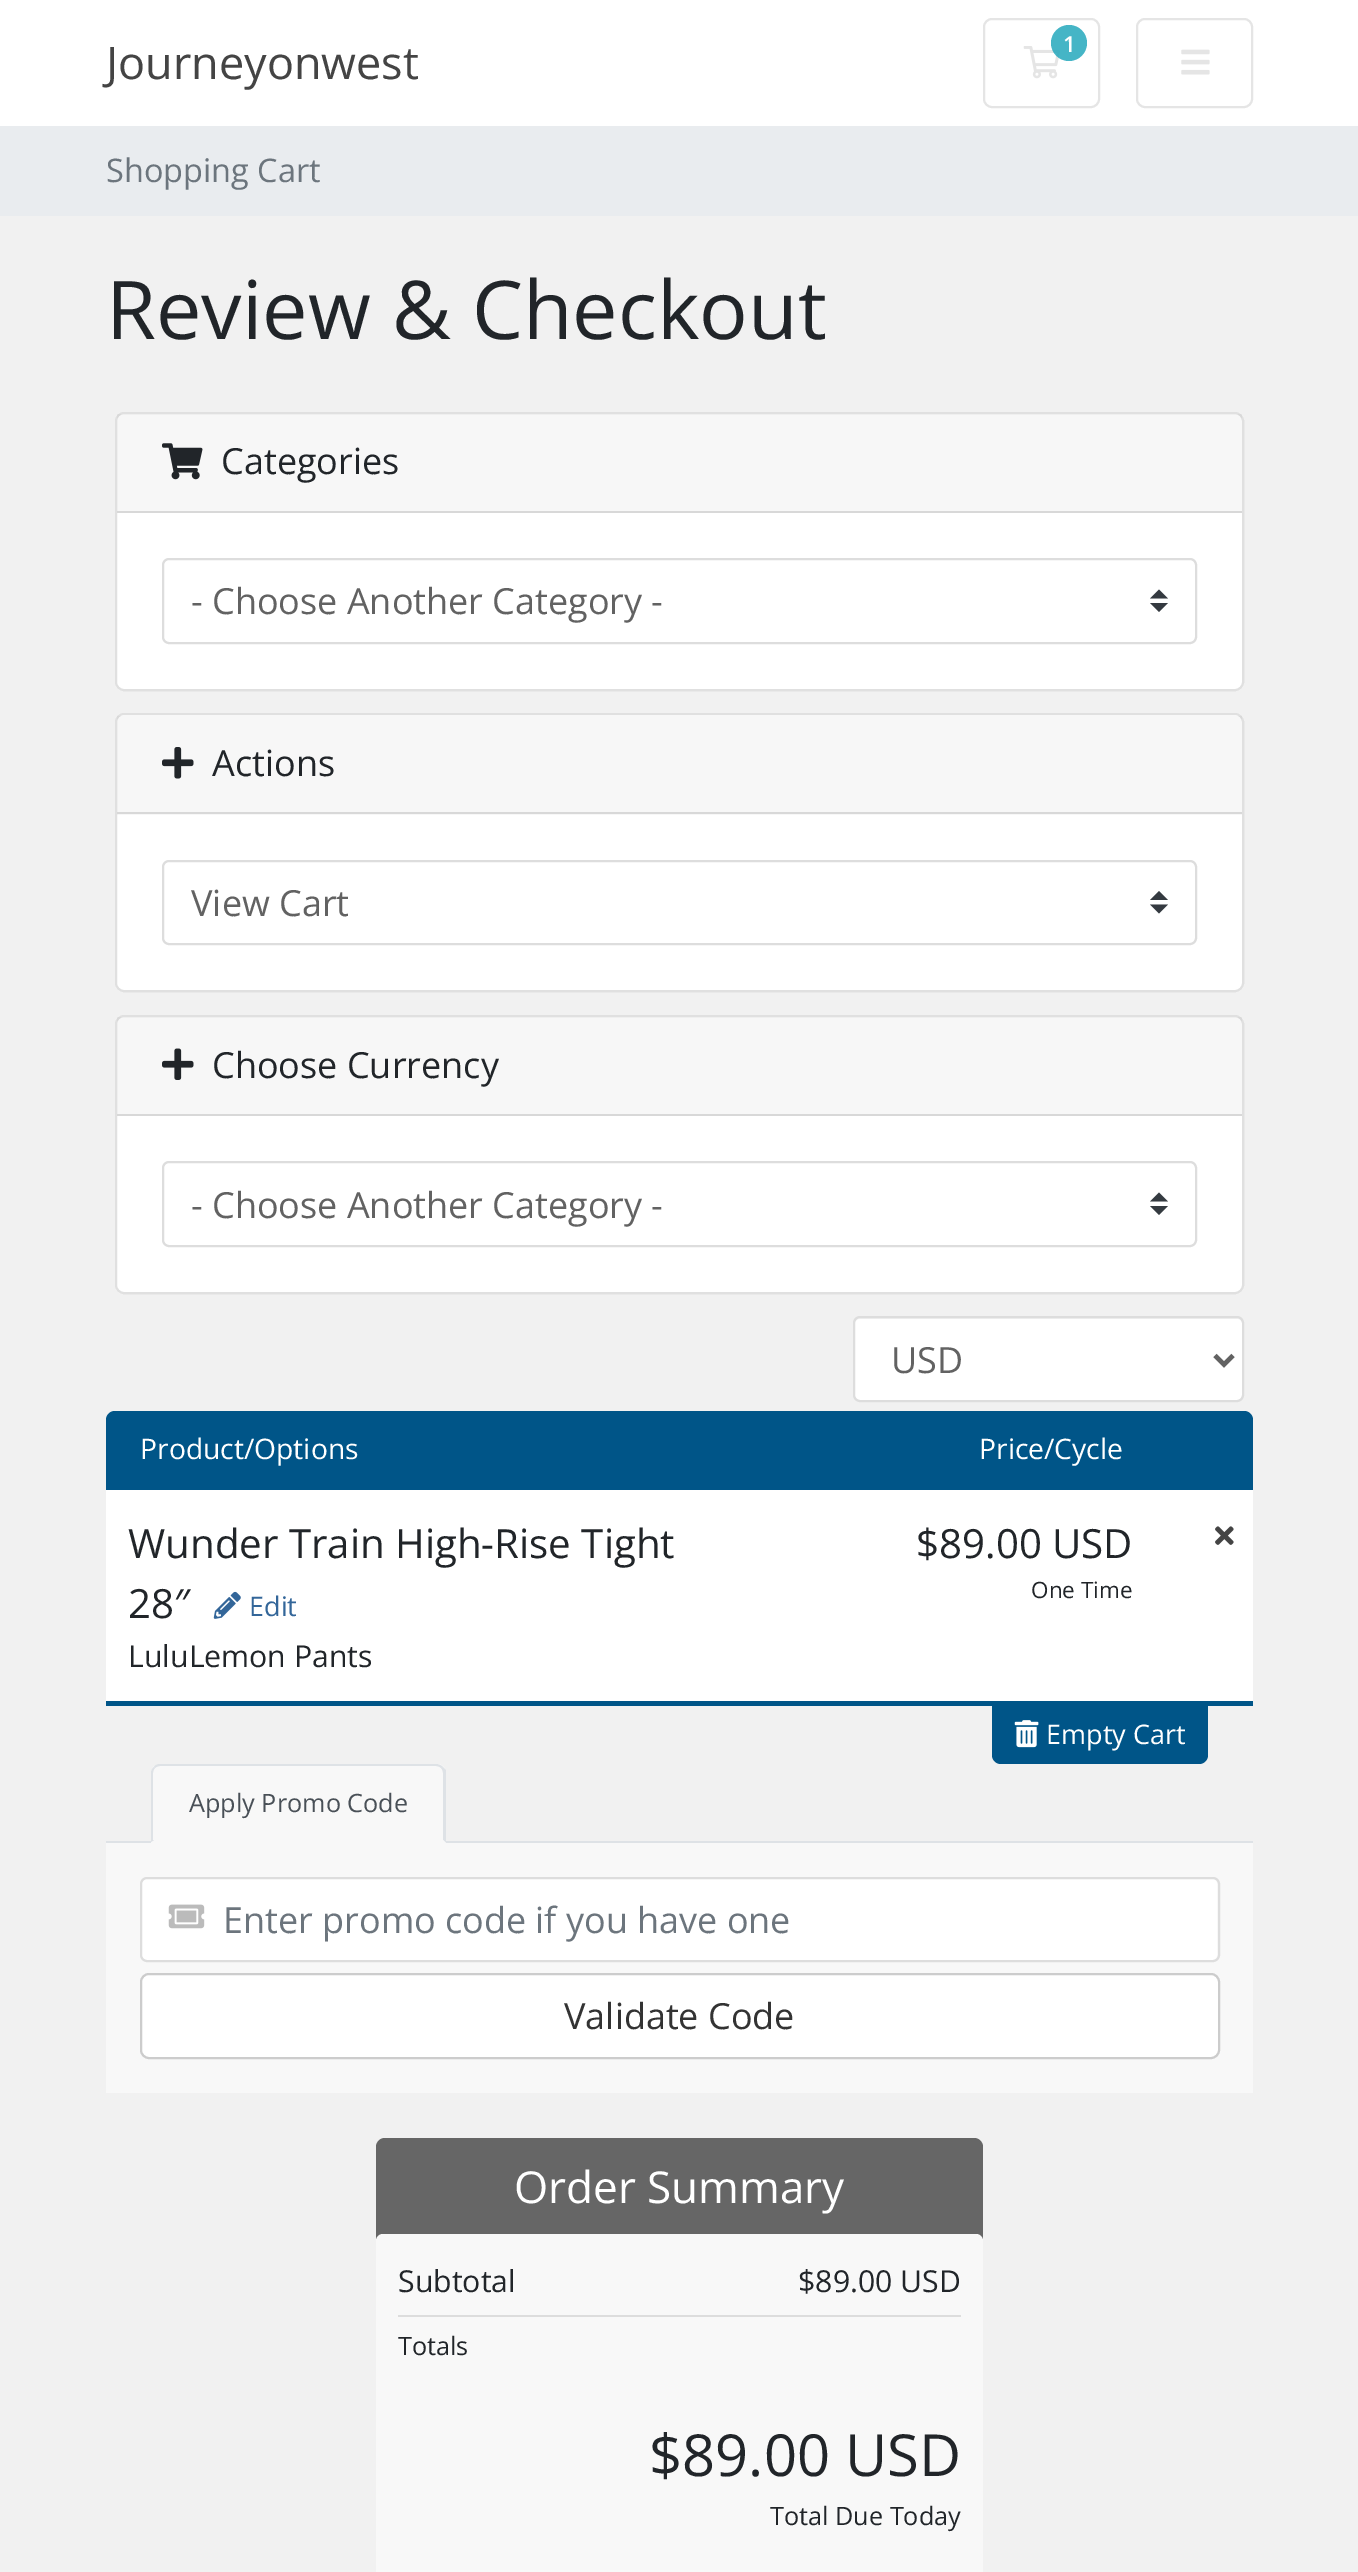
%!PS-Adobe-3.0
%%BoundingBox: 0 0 1358 2572
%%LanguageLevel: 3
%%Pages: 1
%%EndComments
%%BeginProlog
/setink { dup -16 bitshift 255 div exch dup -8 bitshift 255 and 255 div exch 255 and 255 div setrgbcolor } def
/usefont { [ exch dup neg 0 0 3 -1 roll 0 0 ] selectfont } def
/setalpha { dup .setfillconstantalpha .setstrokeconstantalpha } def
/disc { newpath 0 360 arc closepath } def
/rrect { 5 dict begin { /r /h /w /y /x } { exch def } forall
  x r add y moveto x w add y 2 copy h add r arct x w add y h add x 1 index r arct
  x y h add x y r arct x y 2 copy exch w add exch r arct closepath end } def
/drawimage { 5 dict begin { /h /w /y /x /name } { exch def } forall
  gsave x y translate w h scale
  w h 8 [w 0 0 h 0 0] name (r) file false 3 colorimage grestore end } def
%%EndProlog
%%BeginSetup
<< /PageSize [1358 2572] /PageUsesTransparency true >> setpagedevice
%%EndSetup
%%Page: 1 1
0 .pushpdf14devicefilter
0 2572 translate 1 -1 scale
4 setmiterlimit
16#F1F1F1 setink
0 0 1358 2572 rectfill
16#FFFFFF setink
0 0 1358 126 rectfill
16#E5E5E5 setink
2 setlinewidth
984 19 115 88 8 rrect stroke
(img1.raw) 1023 46 37 33 drawimage
0.8 setalpha
16#17A2B8 setink
1069 43 18 disc fill
/OpenSans-SemiBold 22 usefont
1 setalpha
16#FFFFFF setink
1063 52 moveto (1) show
16#E5E5E5 setink
1137 19 115 88 8 rrect stroke
(img2.raw) 1181 49 29 26 drawimage
/OpenSans-Regular 45 usefont
16#444444 setink
106 79 moveto (Journeyonwest) show
16#E9ECEF setink
0 126 1358 90 rectfill
/OpenSans-Regular 32.5 usefont
16#6C757D setink
106 182 moveto (Shopping Cart) show
/OpenSans-Regular 81 usefont
16#212529 setink
106 339 moveto (Review & Checkout) show
16#FFFFFF setink
115 412 1129 279 9 rrect fill
0.12 setalpha
16#000000 setink
116 413 1127 277 8 rrect stroke
0.03 setalpha
117 414 1125 97 rectfill
1 setalpha
16#D8D8D8 setink
117 511 1125 2 rectfill
(img3.raw) 162 443 41 37 drawimage
/OpenSans-Regular 36 usefont
16#212529 setink
221 474 moveto (Categories) show
16#343A40 setink
1159 589.5 moveto 1150 598.5 lineto 1168 598.5 lineto closepath 1159 612 moveto 1150 603 lineto 1168 603 lineto closepath fill
16#DDDDDD setink
163 559 1033 84 6 rrect stroke
16#626262 setink
191 614 moveto (- Choose Another Category -) show
16#FFFFFF setink
115 713 1129 279 9 rrect fill
0.12 setalpha
16#000000 setink
116 714 1127 277 8 rrect stroke
0.03 setalpha
117 716 1125 99 rectfill
1 setalpha
16#D8D8D8 setink
117 812 1125 2 rectfill
(img4.raw) 162 747 32 32 drawimage
16#212529 setink
212 776 moveto (Actions) show
16#343A40 setink
1159 891 moveto 1150 900 lineto 1168 900 lineto closepath 1159 913.5 moveto 1150 904.5 lineto 1168 904.5 lineto closepath fill
16#DDDDDD setink
163 861 1033 83 6 rrect stroke
16#626262 setink
191 916 moveto (View Cart) show
16#FFFFFF setink
115 1015 1129 279 9 rrect fill
0.12 setalpha
16#000000 setink
116 1016 1127 277 8 rrect stroke
0.03 setalpha
117 1017 1125 97 rectfill
1 setalpha
16#D8D8D8 setink
117 1114 1125 2 rectfill
(img5.raw) 162 1048 32 32 drawimage
16#212529 setink
212 1078 moveto (Choose Currency) show
16#343A40 setink
1159 1192.5 moveto 1150 1201.5 lineto 1168 1201.5 lineto closepath 1159 1215 moveto 1150 1206 lineto 1168 1206 lineto closepath fill
16#DDDDDD setink
163 1162 1033 84 6 rrect stroke
16#626262 setink
191 1218 moveto (- Choose Another Category -) show
16#FFFFFF setink
855 1319 387 81 5 rrect fill
16#DDDDDD setink
854 1317 389 84 6 rrect stroke
16#626262 setink
4.5 setlinewidth
1215 1355.5 moveto 1224 1364.5 lineto 1233 1355.5 lineto stroke
891 1373 moveto (USD) show
16#005588 setink
115 1411 moveto 1244 1411 lineto 1249 1411 1253 1415 1253 1420 curveto 1253 1490 lineto 106 1490 lineto 106 1420 lineto 106 1415 110 1411 115 1411 curveto closepath fill
/OpenSans-Regular 28.25 usefont
16#FFFFFF setink
140 1459 moveto (Product/Options) show
979 1459 moveto (Price/Cycle) show
16#005588 setink
106 1701 1147 5 rectfill
16#FFFFFF setink
106 1490 1147 211 rectfill
/OpenSans-Regular 40.25 usefont
16#212529 setink
128 1558 moveto (Wunder Train High-Rise Tight) show
128 1618 moveto (28″) show
(img6.raw) 213 1591 28 28 drawimage
/OpenSans-Regular 27 usefont
16#336699 setink
249 1616 moveto (Edit) show
/OpenSans-Regular 30.25 usefont
16#212529 setink
128 1667 moveto (LuluLemon Pants) show
/OpenSans-Regular 40.25 usefont
916 1558 moveto ($89.00 USD) show
/OpenSans-Regular 22.5 usefont
1031 1598 moveto (One Time) show
(img7.raw) 1215 1526 19 19 drawimage
16#005588 setink
992 1706 moveto 1208 1706 lineto 1208 1755 lineto 1208 1760 1204 1764 1199 1764 curveto 1001 1764 lineto 996 1764 992 1760 992 1755 curveto closepath fill
(img8.raw) 1014 1720 25 28 drawimage
/OpenSans-Regular 27 usefont
16#FFFFFF setink
1046 1744 moveto (Empty Cart) show
16#DEE2E6 setink
106 1841 1147 2 rectfill
16#F8F8F8 setink
160 1764 moveto 437 1764 lineto 442 1764 446 1768 446 1773 curveto 446 1843 lineto 151 1843 lineto 151 1773 lineto 151 1768 155 1764 160 1764 curveto closepath fill
16#DEE2E6 setink
160 1764 moveto 157 1764 155 1765 154 1767 curveto 155 1768 lineto 156 1767 158 1766 160 1766 curveto 436 1766 lineto 438 1766 440 1767 441 1768 curveto 443 1767 lineto 441 1765 438 1764 436 1764 curveto closepath fill
443 1767 moveto 446 1770 lineto 446 1843 lineto 443 1840 lineto 443 1773 lineto 443 1771 442 1769 441 1768 curveto closepath fill
16#F8F8F8 setink
446 1843 moveto 151 1843 lineto 154 1840 lineto 443 1840 lineto closepath fill
16#DEE2E6 setink
154 1767 moveto 152 1768 151 1771 151 1773 curveto 151 1842 lineto 154 1840 lineto 153 1840 lineto 153 1773 lineto 153 1771 154 1769 155 1768 curveto closepath fill
/OpenSans-Regular 25.25 usefont
16#495057 setink
189 1812 moveto (Apply Promo Code) show
16#F8F8F8 setink
106 1843 1147 250 rectfill
16#FFFFFF setink
142 1879 1075 81 5 rrect fill
16#DDDDDD setink
2 setlinewidth
141 1878 1078 83 6 rrect stroke
(img9.raw) 168 1904 37 25 drawimage
/OpenSans-Regular 36 usefont
16#6C757D setink
223 1933 moveto (Enter promo code if you have one) show
16#FFFFFF setink
141 1974 1078 84 8 rrect gsave fill grestore
16#CCCCCC setink
stroke
16#333333 setink
564 2029 moveto (Validate Code) show
16#666666 setink
376 2138 607 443 9 rrect fill
/OpenSans-Regular 44 usefont
16#FFFFFF setink
514 2203 moveto (Order Summary) show
16#F8F8F8 setink
376 2234 607 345 7 rrect fill
16#DDDDDD setink
398 2315 563 2 rectfill
/OpenSans-Regular 30.25 usefont
16#212529 setink
398 2292 moveto (Subtotal) show
798 2292 moveto ($89.00 USD) show
/OpenSans-Regular 25.25 usefont
398 2355 moveto (Totals) show
/OpenSans-Regular 58 usefont
649 2476 moveto ($89.00 USD) show
/OpenSans-Regular 25.25 usefont
770 2525 moveto (Total Due Today) show
.poppdf14devicefilter showpage
%%EOF
